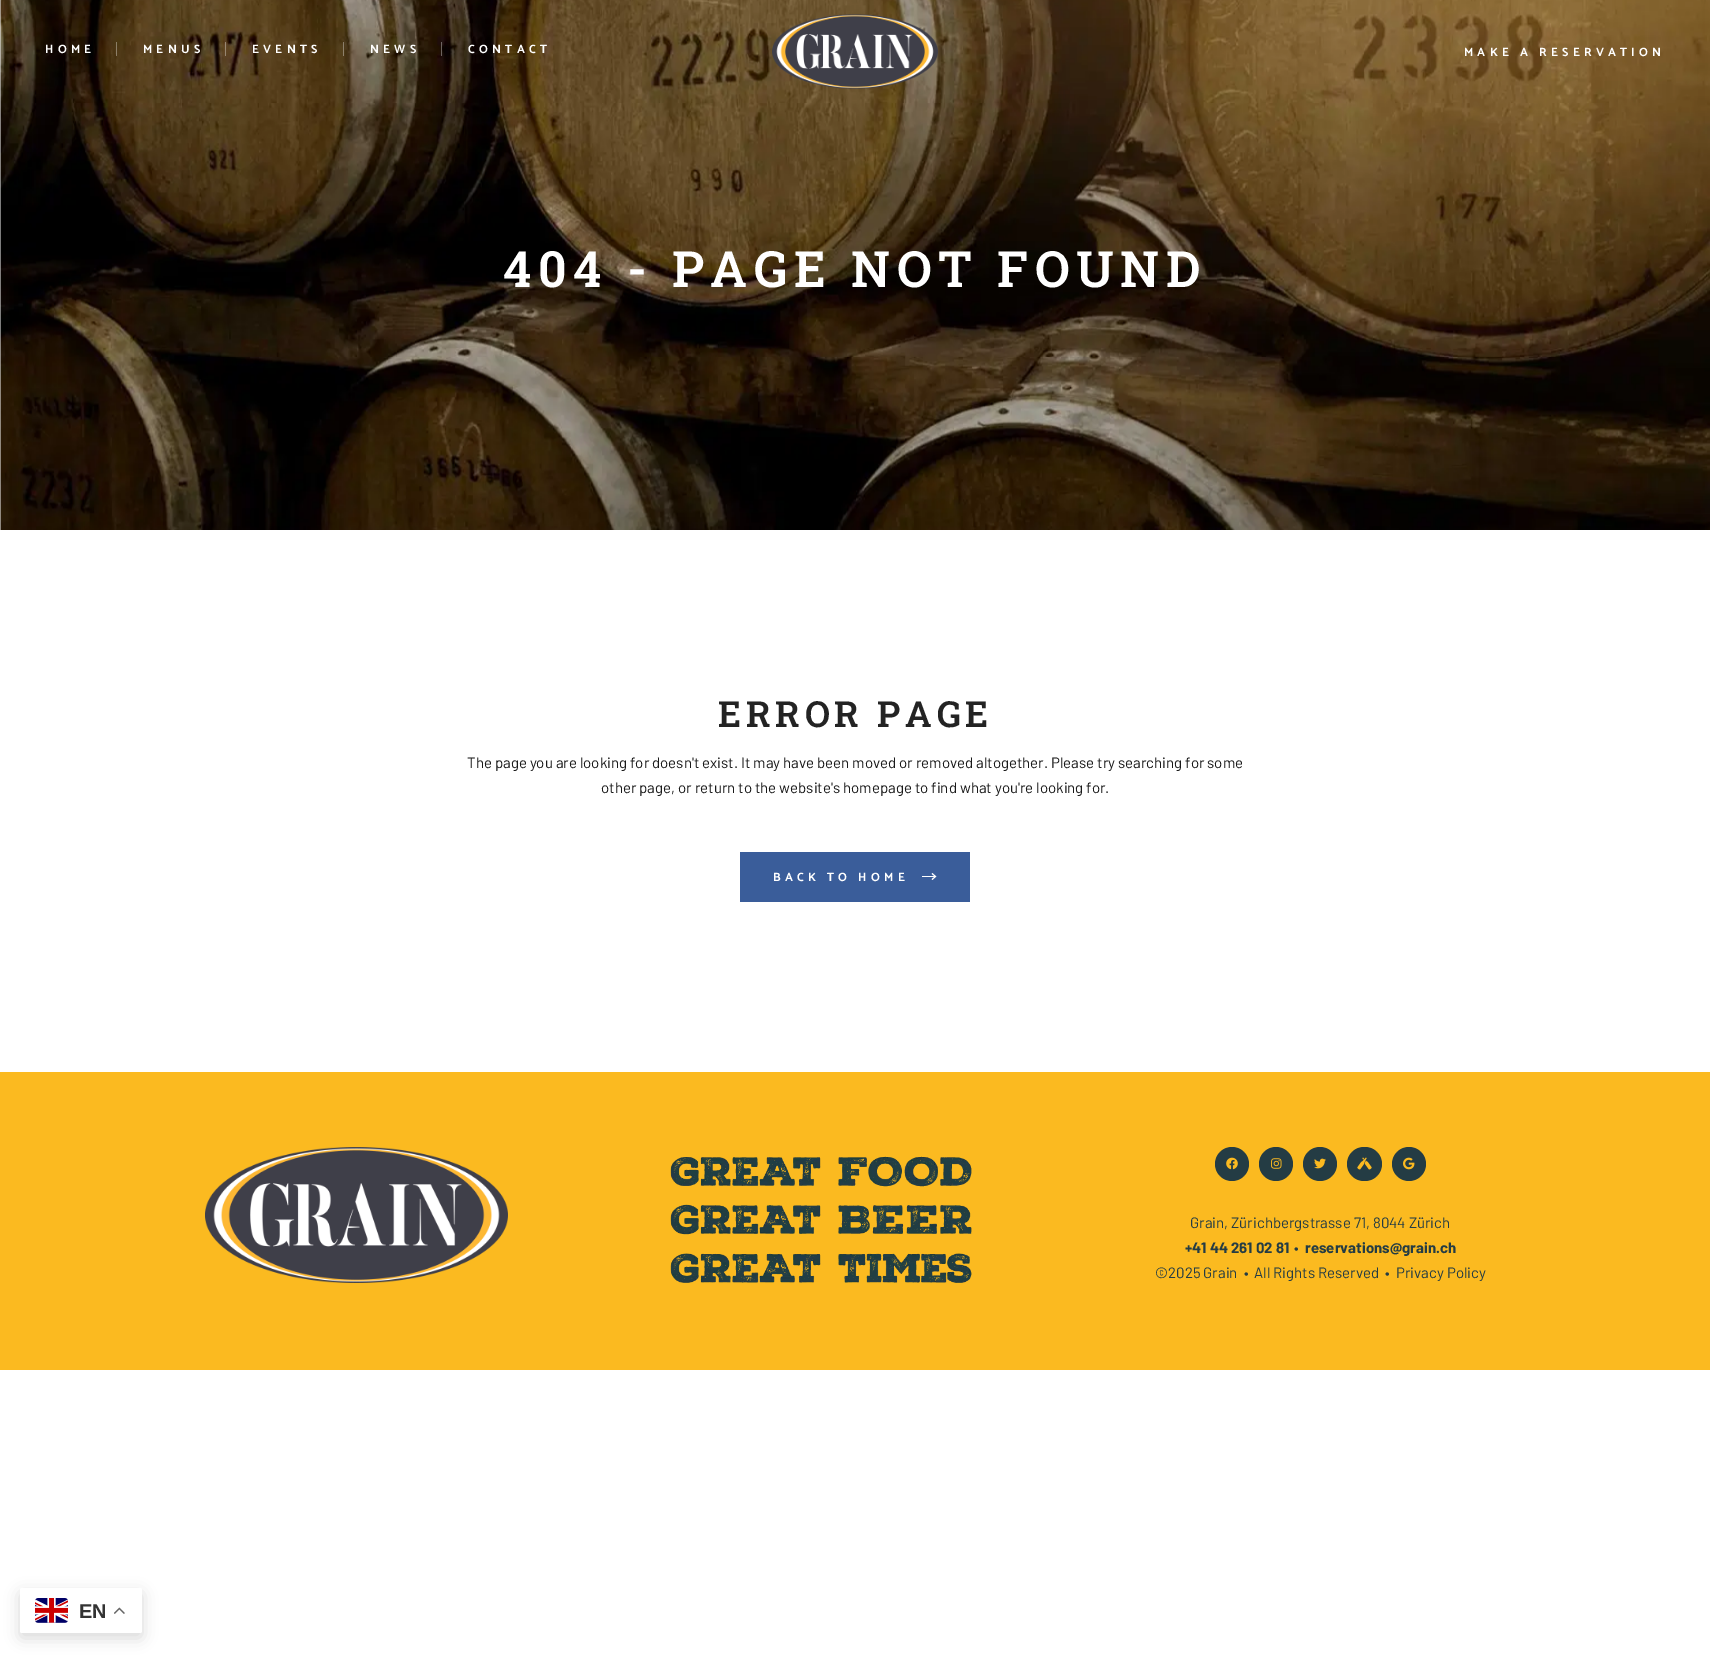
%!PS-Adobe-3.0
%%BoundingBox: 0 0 1710 1660
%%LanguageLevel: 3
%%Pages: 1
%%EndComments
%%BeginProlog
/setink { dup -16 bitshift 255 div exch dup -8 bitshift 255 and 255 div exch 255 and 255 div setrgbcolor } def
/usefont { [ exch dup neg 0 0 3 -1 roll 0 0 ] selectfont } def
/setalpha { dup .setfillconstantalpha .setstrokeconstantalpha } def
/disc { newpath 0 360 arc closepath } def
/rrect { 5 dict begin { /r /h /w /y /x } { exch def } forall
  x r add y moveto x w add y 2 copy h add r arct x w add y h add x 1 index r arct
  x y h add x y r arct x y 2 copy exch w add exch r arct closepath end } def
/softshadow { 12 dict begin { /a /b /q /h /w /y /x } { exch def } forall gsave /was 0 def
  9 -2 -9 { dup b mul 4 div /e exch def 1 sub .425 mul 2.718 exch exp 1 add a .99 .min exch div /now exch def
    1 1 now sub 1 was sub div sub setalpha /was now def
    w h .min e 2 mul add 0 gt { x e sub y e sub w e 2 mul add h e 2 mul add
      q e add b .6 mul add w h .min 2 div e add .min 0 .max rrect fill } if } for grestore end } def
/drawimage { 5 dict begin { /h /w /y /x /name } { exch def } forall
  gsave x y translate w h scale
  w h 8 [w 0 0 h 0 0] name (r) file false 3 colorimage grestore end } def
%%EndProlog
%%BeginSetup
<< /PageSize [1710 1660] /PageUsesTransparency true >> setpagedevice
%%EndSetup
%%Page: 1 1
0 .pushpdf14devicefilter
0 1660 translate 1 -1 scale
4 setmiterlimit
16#FFFFFF setink
0 0 1710 1660 rectfill
16#FAFAFA setink
0 0 1 530 rectfill
(img2.raw) 0 0 1710 530 drawimage
/Catamaran-Bold 12 usefont
16#FFFFFF setink
45 53 moveto 4.25 0 (HOME) ashow
0.35 setalpha
116 42 1 14 rectfill
1 setalpha
143 53 moveto 4.25 0 (MENUS) ashow
0.35 setalpha
225 42 1 14 rectfill
1 setalpha
252 53 moveto 4.25 0 (EVENTS) ashow
0.35 setalpha
343 42 1 14 rectfill
1 setalpha
370 53 moveto 4.25 0 (NEWS) ashow
0.35 setalpha
441 42 1 14 rectfill
1 setalpha
468 53 moveto 4.25 0 (CONTACT) ashow
(img1.raw) 772 14 166 75 drawimage
1464 56 moveto 4.25 0 (MAKE A RESERVATION) ashow
/RobotoSlab-SemiBold 50 usefont
503 287 moveto 6.5 0 (404 - PAGE NOT FOUND) ashow
/RobotoSlab-SemiBold 36 usefont
16#232323 setink
718 727 moveto 4.75 0 (ERROR PAGE) ashow
/Barlow-Regular 15 usefont
16#191919 setink
467 768 moveto (The page you are looking for doesn't exist. It may have been moved or removed altogether. Please try searching for some) show
601 793 moveto (other page, or return to the website's homepage to find what you're looking for.) show
16#3A5D9A setink
740 852 230 50 rectfill
/Catamaran-Bold 12 usefont
16#FFFFFF setink
773 881 moveto 4.25 0 (BACK TO HOME) ashow
922 876 14 1 rectfill
932 873.5 moveto 935.5 876.5 lineto 932 879.5 lineto stroke
16#FBBA20 setink
0 1072 1710 298 rectfill
(img3.raw) 205 1147 303 136 drawimage
(img4.raw) 670 1156 302 127 drawimage
16#243C44 setink
1232 1164 17 disc fill
(img5.raw) 1226 1157 12 13 drawimage
1276 1164 17 disc fill
(img6.raw) 1271 1158 11 11 drawimage
1320 1164 17 disc fill
(img7.raw) 1314 1158 12 11 drawimage
1347 1147 35 34 17 rrect fill
(img8.raw) 1357 1157 15 13 drawimage
1409 1164 17 disc fill
(img9.raw) 1403 1157 12 13 drawimage
/Barlow-Regular 15 usefont
1190 1228 moveto (Grain, Zürichbergstrasse 71, 8044 Zürich) show
/Barlow-Bold 15 usefont
1185 1253 moveto (+41 44 261 02 81) show
/Barlow-Regular 15 usefont
1294 1253 moveto (•) show
/Barlow-Bold 15 usefont
1305 1253 moveto (reservations@grain.ch) show
/Barlow-Regular 15 usefont
1155 1278 moveto (©2025 Grain  •  All Rights Reserved  •) show
1396 1278 moveto (Privacy Policy) show
16#000000 setink
20 1593 122 45 2 7.5 0.15 softshadow
16#FFFFFF setink
20 1588 122 45 2 rrect fill
(img10.raw) 35 1598 33 25 drawimage
/LiberationSans-Bold 20 usefont
16#333333 setink
79 1618 moveto (EN) show
(img11.raw) 114 1607 11 7 drawimage
.poppdf14devicefilter showpage
%%EOF
